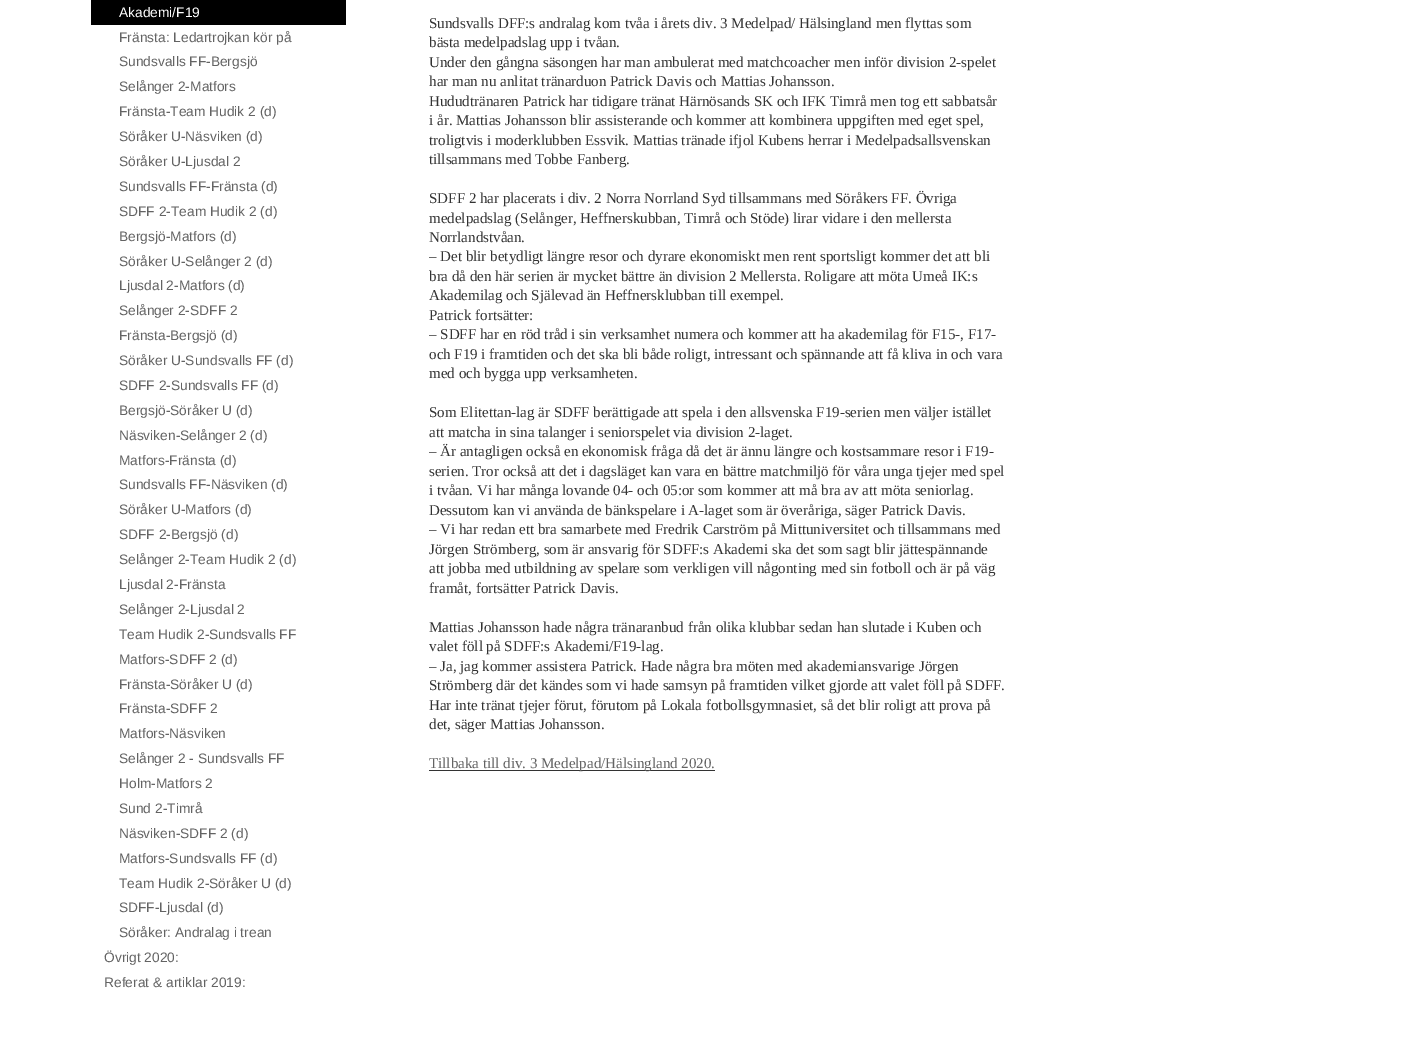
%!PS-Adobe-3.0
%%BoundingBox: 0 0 1407 1052
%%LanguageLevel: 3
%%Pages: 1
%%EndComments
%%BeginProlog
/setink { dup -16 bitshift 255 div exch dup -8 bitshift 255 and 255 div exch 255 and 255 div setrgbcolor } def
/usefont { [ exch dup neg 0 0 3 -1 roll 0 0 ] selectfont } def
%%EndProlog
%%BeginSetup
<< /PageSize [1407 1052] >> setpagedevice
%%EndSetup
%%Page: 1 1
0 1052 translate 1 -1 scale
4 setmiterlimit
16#FFFFFF setink
0 0 1407 1052 rectfill
16#000000 setink
91 0 255 25 rectfill
/LiberationSans-Regular 13.75 usefont
16#FFFFFF setink
119 17 moveto (Akademi/F19) show
16#636363 setink
[
    [(Fränsta: Ledartrojkan kör på) 119 42]
    [(Sundsvalls FF-Bergsjö) 119 66]
    [(Selånger 2-Matfors) 119 91]
    [(Fränsta-Team Hudik 2 \(d\)) 119 116]
    [(Söråker U-Näsviken \(d\)) 119 141]
    [(Söråker U-Ljusdal 2) 119 166]
    [(Sundsvalls FF-Fränsta \(d\)) 119 191]
    [(SDFF 2-Team Hudik 2 \(d\)) 119 216]
    [(Bergsjö-Matfors \(d\)) 119 241]
    [(Söråker U-Selånger 2 \(d\)) 119 266]
    [(Ljusdal 2-Matfors \(d\)) 119 290]
    [(Selånger 2-SDFF 2) 119 315]
    [(Fränsta-Bergsjö \(d\)) 119 340]
    [(Söråker U-Sundsvalls FF \(d\)) 119 365]
    [(SDFF 2-Sundsvalls FF \(d\)) 119 390]
    [(Bergsjö-Söråker U \(d\)) 119 415]
    [(Näsviken-Selånger 2 \(d\)) 119 440]
    [(Matfors-Fränsta \(d\)) 119 465]
    [(Sundsvalls FF-Näsviken \(d\)) 119 489]
    [(Söråker U-Matfors \(d\)) 119 514]
    [(SDFF 2-Bergsjö \(d\)) 119 539]
    [(Selånger 2-Team Hudik 2 \(d\)) 119 564]
    [(Ljusdal 2-Fränsta) 119 589]
    [(Selånger 2-Ljusdal 2) 119 614]
    [(Team Hudik 2-Sundsvalls FF) 119 639]
    [(Matfors-SDFF 2 \(d\)) 119 664]
    [(Fränsta-Söråker U \(d\)) 119 689]
    [(Fränsta-SDFF 2) 119 713]
    [(Matfors-Näsviken) 119 738]
    [(Selånger 2 - Sundsvalls FF) 119 763]
    [(Holm-Matfors 2) 119 788]
    [(Sund 2-Timrå) 119 813]
    [(Näsviken-SDFF 2 \(d\)) 119 838]
    [(Matfors-Sundsvalls FF \(d\)) 119 863]
    [(Team Hudik 2-Söråker U \(d\)) 119 888]
    [(SDFF-Ljusdal \(d\)) 119 912]
    [(Söråker: Andralag i trean) 119 937]
    [(Övrigt 2020:) 104 962]
    [(Referat & artiklar 2019:) 104 987]
] { aload pop moveto show } forall
/LiberationSerif-Regular 15 usefont
16#333333 setink
[
    [(Sundsvalls DFF:s andralag kom tvåa i årets div. 3 Medelpad/ Hälsingland men flyttas som) 429 28]
    [(bästa medelpadslag upp i tvåan.) 429 47]
    [(Under den gångna säsongen har man ambulerat med matchcoacher men inför division 2-spelet) 429 67]
    [(har man nu anlitat tränarduon Patrick Davis och Mattias Johansson.) 429 86]
    [(Hududtränaren Patrick har tidigare tränat Härnösands SK och IFK Timrå men tog ett sabbatsår) 429 106]
    [(i år. Mattias Johansson blir assisterande och kommer att kombinera uppgiften med eget spel,) 429 125]
    [(troligtvis i moderklubben Essvik. Mattias tränade ifjol Kubens herrar i Medelpadsallsvenskan) 429 145]
    [(tillsammans med Tobbe Fanberg.) 429 164]
    [(SDFF 2 har placerats i div. 2 Norra Norrland Syd tillsammans med Söråkers FF. Övriga) 429 203]
    [(medelpadslag \(Selånger, Heffnerskubban, Timrå och Stöde\) lirar vidare i den mellersta) 429 223]
    [(Norrlandstvåan.) 429 242]
    [(– Det blir betydligt längre resor och dyrare ekonomiskt men rent sportsligt kommer det att bli) 429 261]
    [(bra då den här serien är mycket bättre än division 2 Mellersta. Roligare att möta Umeå IK:s) 429 281]
    [(Akademilag och Själevad än Heffnersklubban till exempel.) 429 300]
    [(Patrick fortsätter:) 429 320]
    [(– SDFF har en röd tråd i sin verksamhet numera och kommer att ha akademilag för F15-, F17-) 429 339]
    [(och F19 i framtiden och det ska bli både roligt, intressant och spännande att få kliva in och vara) 429 359]
    [(med och bygga upp verksamheten.) 429 378]
    [(Som Elitettan-lag är SDFF berättigade att spela i den allsvenska F19-serien men väljer istället) 429 417]
    [(att matcha in sina talanger i seniorspelet via division 2-laget.) 429 437]
    [(– Är antagligen också en ekonomisk fråga då det är ännu längre och kostsammare resor i F19-) 429 456]
    [(serien. Tror också att det i dagsläget kan vara en bättre matchmiljö för våra unga tjejer med spel) 429 476]
    [(i tvåan. Vi har många lovande 04- och 05:or som kommer att må bra av att möta seniorlag.) 429 495]
    [(Dessutom kan vi använda de bänkspelare i A-laget som är överåriga, säger Patrick Davis.) 429 515]
    [(– Vi har redan ett bra samarbete med Fredrik Carström på Mittuniversitet och tillsammans med) 429 534]
    [(Jörgen Strömberg, som är ansvarig för SDFF:s Akademi ska det som sagt blir jättespännande) 429 554]
    [(att jobba med utbildning av spelare som verkligen vill någonting med sin fotboll och är på väg) 429 573]
    [(framåt, fortsätter Patrick Davis.) 429 593]
    [(Mattias Johansson hade några tränaranbud från olika klubbar sedan han slutade i Kuben och) 429 632]
    [(valet föll på SDFF:s Akademi/F19-lag.) 429 651]
    [(– Ja, jag kommer assistera Patrick. Hade några bra möten med akademiansvarige Jörgen) 429 671]
    [(Strömberg där det kändes som vi hade samsyn på framtiden vilket gjorde att valet föll på SDFF.) 429 690]
    [(Har inte tränat tjejer förut, förutom på Lokala fotbollsgymnasiet, så det blir roligt att prova på) 429 710]
    [(det, säger Mattias Johansson.) 429 729]
] { aload pop moveto show } forall
429 770 286 1 rectfill
16#636363 setink
429 768 moveto (Tillbaka till div. 3 Medelpad/Hälsingland 2020.) show
showpage
%%EOF
